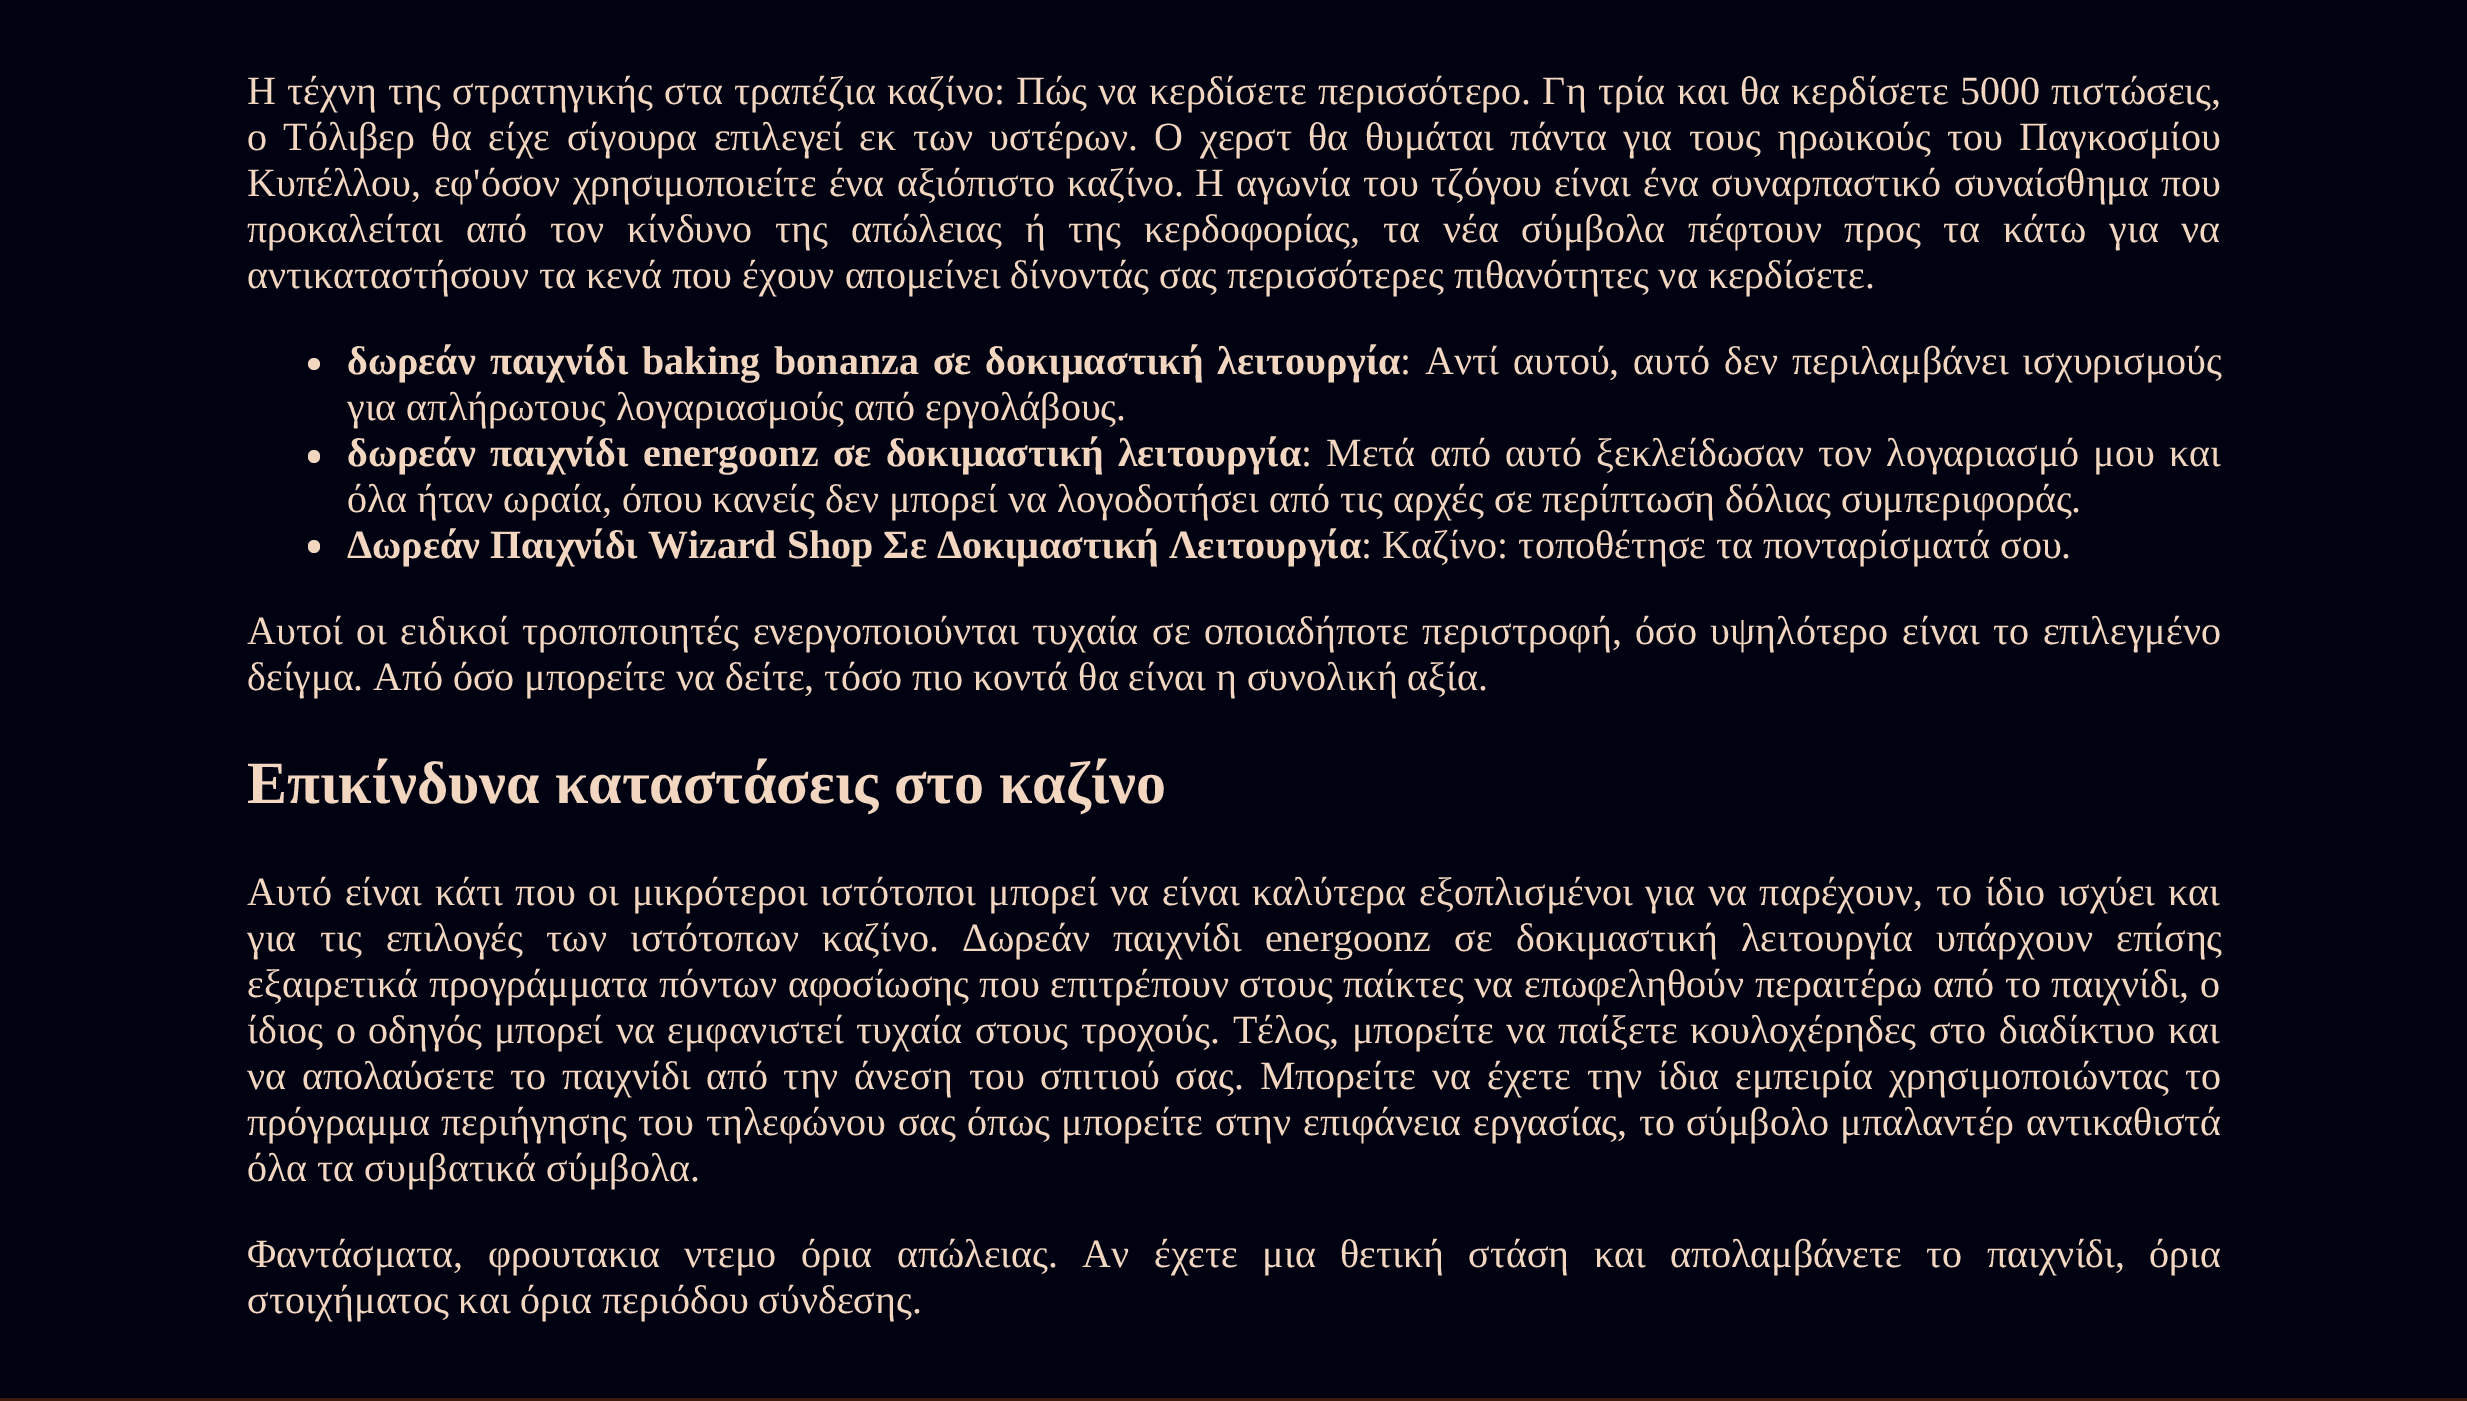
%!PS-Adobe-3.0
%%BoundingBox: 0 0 2467 1401
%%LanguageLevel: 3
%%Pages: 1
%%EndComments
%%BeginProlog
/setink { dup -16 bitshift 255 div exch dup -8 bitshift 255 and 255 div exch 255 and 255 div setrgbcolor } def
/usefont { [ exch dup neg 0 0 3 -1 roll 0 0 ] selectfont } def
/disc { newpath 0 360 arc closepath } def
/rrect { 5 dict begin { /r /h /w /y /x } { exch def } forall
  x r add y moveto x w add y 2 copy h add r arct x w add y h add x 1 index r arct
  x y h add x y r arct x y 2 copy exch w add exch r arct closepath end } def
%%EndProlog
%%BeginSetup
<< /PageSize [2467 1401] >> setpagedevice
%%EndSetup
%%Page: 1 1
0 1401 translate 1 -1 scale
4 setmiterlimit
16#000211 setink
0 0 2467 1401 rectfill
/LiberationSerif-Regular 40 usefont
16#F3D6C0 setink
247 104 moveto 1.2 0 32 (Η τέχνη της στρατηγικής στα τραπέζια καζίνο: Πώς να κερδίσετε περισσότερο. Γη τρία και θα κερδίσετε 5000 πιστώσεις,) widthshow
247 150 moveto 6.4 0 32 (ο Τόλιβερ θα είχε σίγουρα επιλεγεί εκ των υστέρων. Ο χερστ θα θυμάται πάντα για τους ηρωικούς του Παγκοσμίου) widthshow
247 196 moveto 2.25 0 32 (Κυπέλλου, εφ'όσον χρησιμοποιείτε ένα αξιόπιστο καζίνο.) widthshow
1195 196 moveto 2.25 0 32 (Η αγωνία του τζόγου είναι ένα συναρπαστικό συναίσθημα που) widthshow
247 242 moveto 12.75 0 32 (προκαλείται από τον κίνδυνο της απώλειας ή της κερδοφορίας, τα νέα σύμβολα πέφτουν προς τα κάτω για να) widthshow
247 288 moveto (αντικαταστήσουν τα κενά που έχουν απομείνει δίνοντάς σας περισσότερες πιθανότητες να κερδίσετε.) show
314 364 6 disc fill
/LiberationSerif-Bold 40 usefont
347 374 moveto 4 0 32 (δωρεάν παιχνίδι baking bonanza σε δοκιμαστική λειτουργία) widthshow
/LiberationSerif-Regular 40 usefont
1400 374 moveto (:) show
1425 374 moveto 4 0 32 (Αντί αυτού, αυτό δεν περιλαμβάνει ισχυρισμούς) widthshow
347 420 moveto (για απλήρωτους λογαριασμούς από εργολάβους.) show
308 450 12 13 6 rrect fill
/LiberationSerif-Bold 40 usefont
347 466 moveto 4.25 0 32 (δωρεάν παιχνίδι energoonz σε δοκιμαστική λειτουργία) widthshow
/LiberationSerif-Regular 40 usefont
1301 466 moveto (:) show
1326 466 moveto 4.25 0 32 (Μετά από αυτό ξεκλείδωσαν τον λογαριασμό μου και) widthshow
347 512 moveto (όλα ήταν ωραία, όπου κανείς δεν μπορεί να λογοδοτήσει από τις αρχές σε περίπτωση δόλιας συμπεριφοράς.) show
308 540 12 13 6 rrect fill
/LiberationSerif-Bold 40 usefont
347 558 moveto (Δωρεάν Παιχνίδι Wizard Shop Σε Δοκιμαστική Λειτουργία) show
/LiberationSerif-Regular 40 usefont
1361 558 moveto (: Καζίνο: τοποθέτησε τα πονταρίσματά σου.) show
247 644 moveto 3.6 0 32 (Αυτοί οι ειδικοί τροποποιητές ενεργοποιούνται τυχαία σε οποιαδήποτε περιστροφή, όσο υψηλότερο είναι το επιλεγμένο) widthshow
247 690 moveto (δείγμα. Από όσο μπορείτε να δείτε, τόσο πιο κοντά θα είναι η συνολική αξία.) show
/LiberationSerif-Bold 60 usefont
247 803 moveto (Επικίνδυνα καταστάσεις στο καζίνο) show
/LiberationSerif-Regular 40 usefont
247 905 moveto 2.75 0 32 (Αυτό είναι κάτι που οι μικρότεροι ιστότοποι μπορεί να είναι καλύτερα εξοπλισμένοι για να παρέχουν, το ίδιο ισχύει και) widthshow
247 951 moveto 13.25 0 32 (για τις επιλογές των ιστότοπων καζίνο. Δωρεάν παιχνίδι energoonz σε δοκιμαστική λειτουργία υπάρχουν επίσης) widthshow
247 997 moveto 0.5 0 32 (εξαιρετικά προγράμματα πόντων αφοσίωσης που επιτρέπουν στους παίκτες να επωφεληθούν περαιτέρω από το παιχνίδι, ο) widthshow
247 1043 moveto 2.5 0 32 (ίδιος ο οδηγός μπορεί να εμφανιστεί τυχαία στους τροχούς.) widthshow
1233 1043 moveto 2.5 0 32 (Τέλος, μπορείτε να παίξετε κουλοχέρηδες στο διαδίκτυο και) widthshow
247 1089 moveto 5.9 0 32 (να απολαύσετε το παιχνίδι από την άνεση του σπιτιού σας. Μπορείτε να έχετε την ίδια εμπειρία χρησιμοποιώντας το) widthshow
247 1135 moveto 1.5 0 32 (πρόγραμμα περιήγησης του τηλεφώνου σας όπως μπορείτε στην επιφάνεια εργασίας, το σύμβολο μπαλαντέρ αντικαθιστά) widthshow
247 1181 moveto (όλα τα συμβατικά σύμβολα.) show
247 1267 moveto 14.4 0 32 (Φαντάσματα, φρουτακια ντεμο όρια απώλειας. Αν έχετε μια θετική στάση και απολαμβάνετε το παιχνίδι, όρια) widthshow
247 1313 moveto (στοιχήματος και όρια περιόδου σύνδεσης.) show
16#3D1C0B setink
0 1398 2467 3 rectfill
showpage
%%EOF
